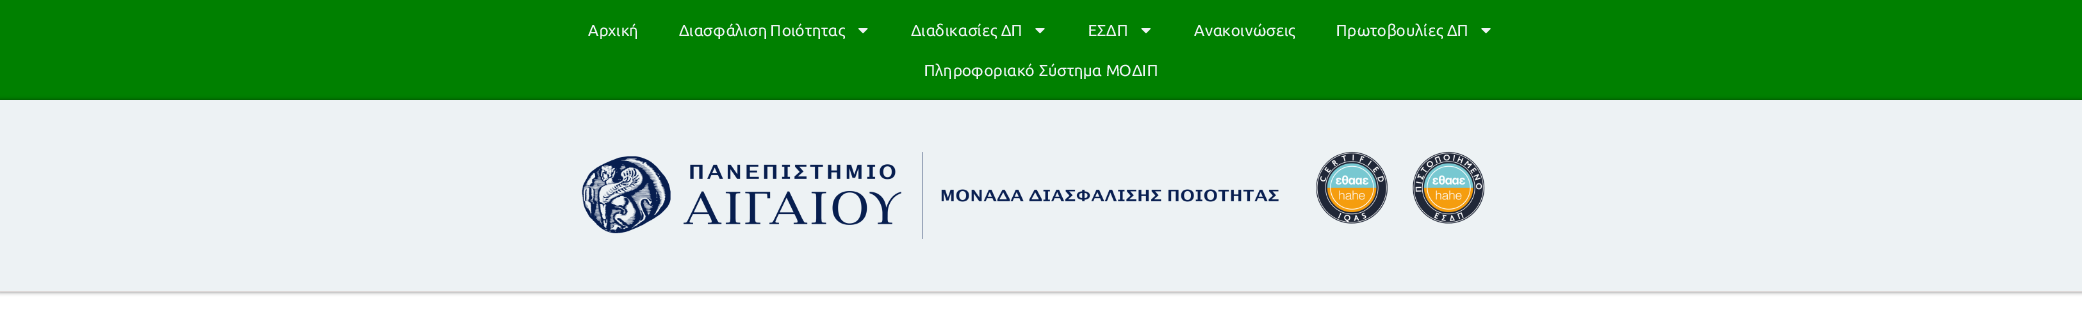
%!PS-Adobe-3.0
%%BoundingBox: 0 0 2082 316
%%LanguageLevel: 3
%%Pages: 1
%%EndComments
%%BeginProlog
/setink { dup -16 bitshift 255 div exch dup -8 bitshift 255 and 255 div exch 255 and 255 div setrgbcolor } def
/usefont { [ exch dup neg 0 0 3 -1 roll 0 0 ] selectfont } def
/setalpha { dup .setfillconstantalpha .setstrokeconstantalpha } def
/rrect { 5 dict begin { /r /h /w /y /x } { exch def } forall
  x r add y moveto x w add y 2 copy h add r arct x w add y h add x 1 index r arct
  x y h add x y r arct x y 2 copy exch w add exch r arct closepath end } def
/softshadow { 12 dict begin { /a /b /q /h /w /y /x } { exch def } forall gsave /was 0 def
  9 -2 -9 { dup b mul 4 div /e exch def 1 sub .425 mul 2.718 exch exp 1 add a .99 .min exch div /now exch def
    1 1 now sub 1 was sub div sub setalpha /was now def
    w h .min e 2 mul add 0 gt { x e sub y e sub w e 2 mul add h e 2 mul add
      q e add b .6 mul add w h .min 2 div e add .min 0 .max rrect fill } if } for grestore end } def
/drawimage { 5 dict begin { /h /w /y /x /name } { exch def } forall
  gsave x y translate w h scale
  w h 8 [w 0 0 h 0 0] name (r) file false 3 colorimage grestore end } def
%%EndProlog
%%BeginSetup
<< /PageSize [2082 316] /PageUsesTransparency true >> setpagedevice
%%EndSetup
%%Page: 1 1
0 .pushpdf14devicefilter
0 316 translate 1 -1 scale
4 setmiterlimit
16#FFFFFF setink
0 0 2082 316 rectfill
16#008000 setink
0 0 2082 100 rectfill
/Ubuntu-Regular 16 usefont
16#EDF2F4 setink
588 36 moveto (Αρχική) show
679 36 moveto (Διασφάλιση Ποιότητας) show
(img1.raw) 858 28 10 6 drawimage
911 36 moveto (Διαδικασίες ΔΠ) show
(img1.raw) 1035 28 10 6 drawimage
1088 36 moveto (ΕΣΔΠ) show
(img1.raw) 1141 28 10 6 drawimage
1194 36 moveto (Ανακοινώσεις) show
1336 36 moveto (Πρωτοβουλίες ΔΠ) show
(img1.raw) 1481 28 10 6 drawimage
924 76 moveto (Πληροφοριακό Σύστημα ΜΟΔΙΠ) show
16#000000 setink
0 100 2082 192 0 2 0.5 softshadow
16#EDF2F4 setink
0 100 2082 191 rectfill
16#DDD8D8 setink
0 291 2082 1 rectfill
(img2.raw) 581 151 904 88 drawimage
.poppdf14devicefilter showpage
%%EOF
